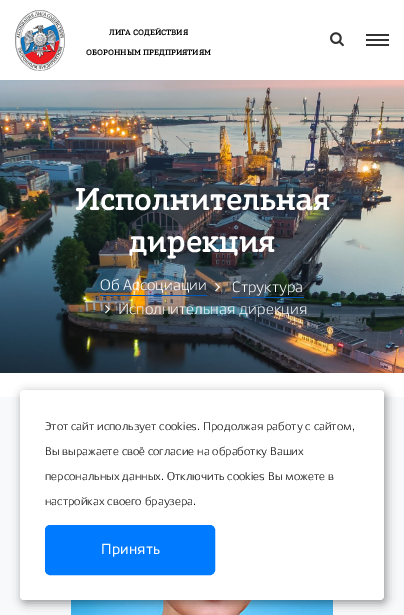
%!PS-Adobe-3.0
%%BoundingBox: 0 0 404 615
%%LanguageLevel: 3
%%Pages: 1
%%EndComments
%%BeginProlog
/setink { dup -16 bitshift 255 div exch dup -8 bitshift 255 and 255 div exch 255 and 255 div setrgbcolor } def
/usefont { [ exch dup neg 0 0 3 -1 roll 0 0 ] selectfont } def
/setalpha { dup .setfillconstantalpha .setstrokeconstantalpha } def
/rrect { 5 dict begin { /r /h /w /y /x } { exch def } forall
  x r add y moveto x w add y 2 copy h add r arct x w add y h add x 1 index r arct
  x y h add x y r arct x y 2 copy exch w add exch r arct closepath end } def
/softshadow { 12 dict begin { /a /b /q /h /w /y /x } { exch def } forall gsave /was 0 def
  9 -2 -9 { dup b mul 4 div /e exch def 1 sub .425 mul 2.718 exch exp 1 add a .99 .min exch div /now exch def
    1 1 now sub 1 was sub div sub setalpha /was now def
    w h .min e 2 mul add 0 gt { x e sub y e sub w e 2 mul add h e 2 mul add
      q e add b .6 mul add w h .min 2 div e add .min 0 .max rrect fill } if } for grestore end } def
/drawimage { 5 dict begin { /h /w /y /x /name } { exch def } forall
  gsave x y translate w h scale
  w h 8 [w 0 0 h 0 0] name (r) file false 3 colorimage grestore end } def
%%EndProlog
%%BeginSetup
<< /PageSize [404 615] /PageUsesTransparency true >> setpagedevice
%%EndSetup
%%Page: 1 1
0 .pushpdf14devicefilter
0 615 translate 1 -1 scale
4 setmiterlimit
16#FFFFFF setink
0 0 404 615 rectfill
(img1.raw) 15 10 50 61 drawimage
/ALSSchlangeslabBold-Bold 8 usefont
16#000000 setink
109 35 moveto (ЛИГА СОДЕЙСТВИЯ) show
86 55 moveto (ОБОРОННЫМ ПРЕДПРИЯТИЯМ) show
(img2.raw) 330 32 14 15 drawimage
[
    [366 34 23 2 16#333333]
    [366 39 23 2 16#333333]
    [366 44 23 2 16#333333]
] { aload pop setink rectfill } forall
(img3.raw) 0 80 404 293 drawimage
/ALSSchlangeslabBold-Bold 32 usefont
16#FFFFFF setink
75 210 moveto (Исполнительная) show
129 252 moveto (дирекция) show
/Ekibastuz-Regular 15 usefont
100 290 moveto (Об Ассоциации) show
16#0057B7 setink
100 295 107 1 rectfill
(img4.raw) 215 283 5 9 drawimage
16#FFFFFF setink
232 292 moveto (Структура) show
16#0057B7 setink
232 297 72 1 rectfill
(img5.raw) 105 305 5 9 drawimage
16#F9F9F9 setink
118 314 moveto (Исполнительная дирекция) show
16#F8F9FA setink
0 397 404 218 rectfill
(img6.raw) 71 600 262 15 drawimage
16#000000 setink
22 393 364 210 4 5 0.4 softshadow
16#FFFFFF setink
20 390 364 210 4 rrect fill
/Ekibastuz-Regular 11.2 usefont
16#000000 setink
[
    [(Этот сайт использует cookies. Продолжая работу с сайтом,) 45 430]
    [(Вы выражаете своё согласие на обработку Ваших) 45 455]
    [(персональных данных. Отключить cookies Вы можете в) 45 480]
    [(настройках своего браузера.) 45 505]
] { aload pop moveto show } forall
16#007BFF setink
45.5 525.5 169 49 4.5 rrect gsave fill grestore
stroke
/Ekibastuz-Bold 14 usefont
16#FFFFFF setink
101 554 moveto 0.5 0 (Принять) ashow
.poppdf14devicefilter showpage
%%EOF
